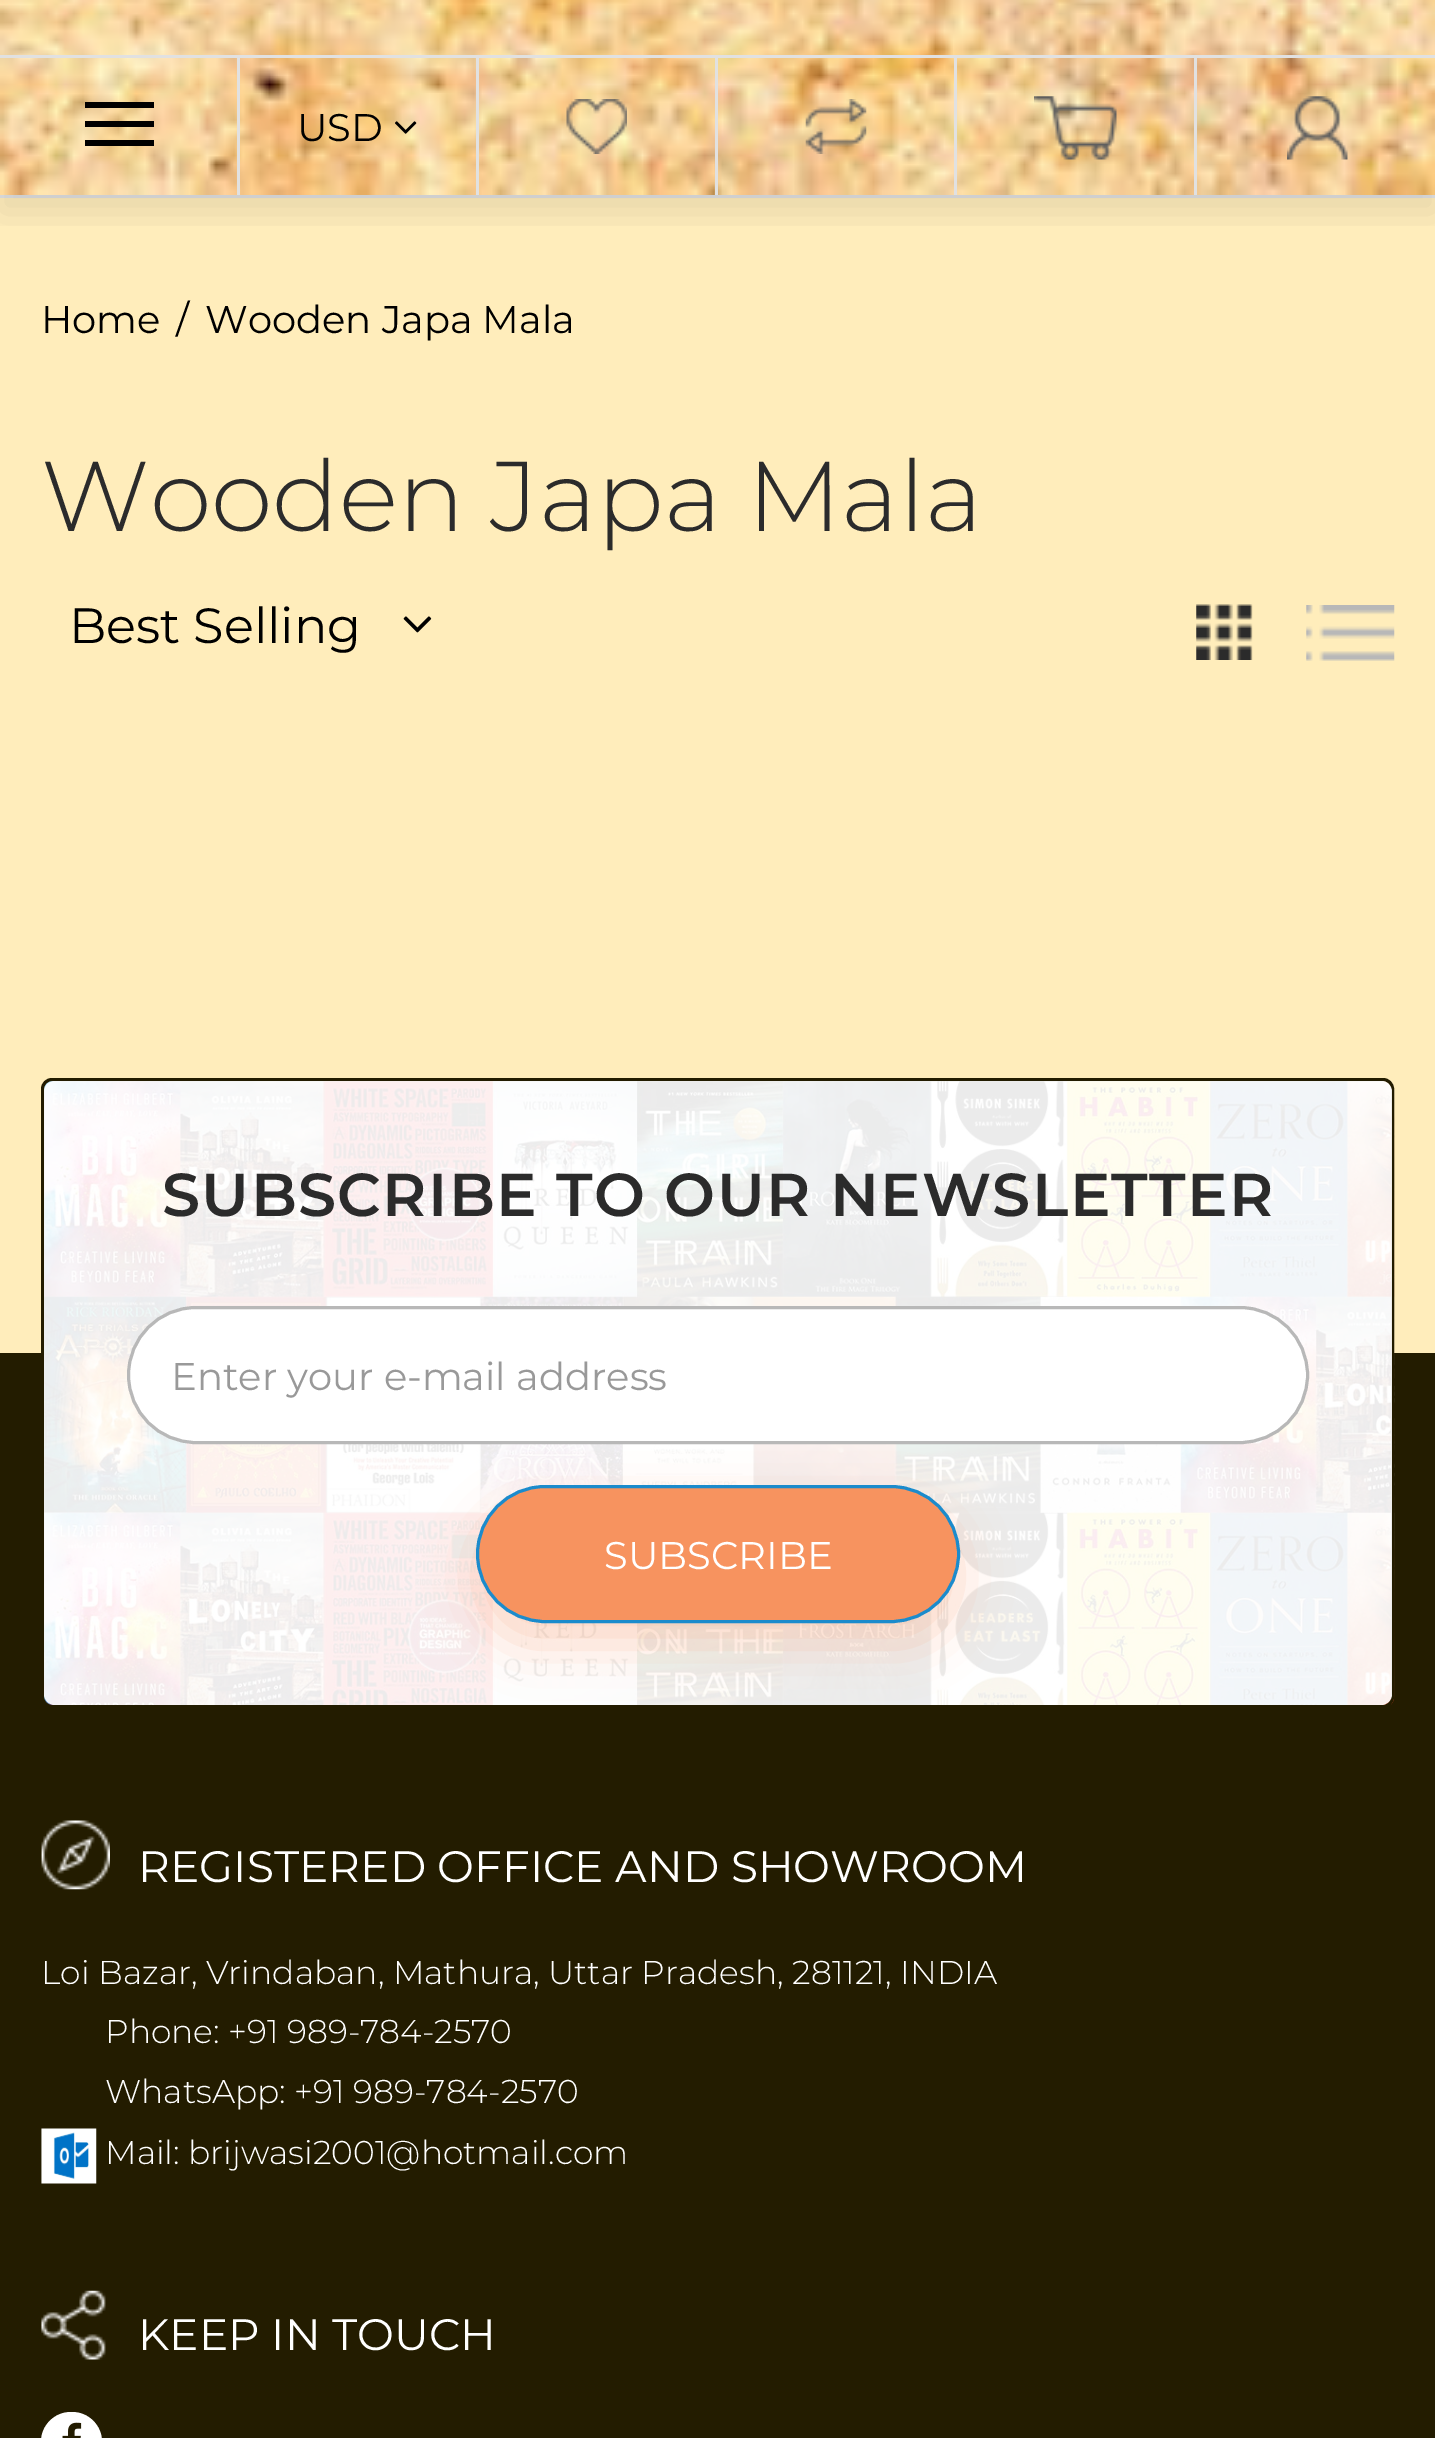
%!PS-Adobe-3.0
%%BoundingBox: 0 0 1435 2438
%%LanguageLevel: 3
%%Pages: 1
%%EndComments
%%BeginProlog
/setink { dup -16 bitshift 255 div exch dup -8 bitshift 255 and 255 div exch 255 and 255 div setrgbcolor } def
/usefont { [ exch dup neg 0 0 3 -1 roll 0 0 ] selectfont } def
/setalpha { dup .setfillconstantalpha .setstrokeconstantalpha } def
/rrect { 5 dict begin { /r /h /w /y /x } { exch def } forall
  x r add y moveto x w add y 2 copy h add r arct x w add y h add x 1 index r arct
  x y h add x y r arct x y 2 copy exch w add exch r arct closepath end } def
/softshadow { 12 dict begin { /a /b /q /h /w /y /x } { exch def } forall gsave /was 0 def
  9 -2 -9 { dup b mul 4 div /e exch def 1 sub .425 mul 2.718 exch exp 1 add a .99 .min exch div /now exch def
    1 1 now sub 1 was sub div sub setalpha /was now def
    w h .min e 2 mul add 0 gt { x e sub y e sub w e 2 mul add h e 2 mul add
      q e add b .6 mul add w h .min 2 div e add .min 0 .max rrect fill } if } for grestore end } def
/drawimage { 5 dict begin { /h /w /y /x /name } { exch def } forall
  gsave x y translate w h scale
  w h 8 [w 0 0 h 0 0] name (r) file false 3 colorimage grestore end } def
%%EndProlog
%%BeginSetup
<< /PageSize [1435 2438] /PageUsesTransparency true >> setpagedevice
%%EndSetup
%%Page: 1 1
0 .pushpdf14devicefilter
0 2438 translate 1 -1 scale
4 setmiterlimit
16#FFEDBB setink
0 0 1435 2438 rectfill
(img1.raw) 0 0 1435 195 drawimage
16#E1E1E1 setink
0 195 1435 3 rectfill
gsave
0 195 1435 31 rectclip
16#000000 setink
0 -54 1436 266 0 18 0.09 softshadow
grestore
[
    [0 55 1435 3 16#E1E1E1]
    [237 58 3 137 16#E1E1E1]
    [85 102 69 6 16#000000]
    [85 121 69 6 16#000000]
    [85 140 69 6 16#000000]
    [476 58 3 137 16#E1E1E1]
] { aload pop setink rectfill } forall
/Montserrat-Regular 38.5 usefont
16#000000 setink
297 141 moveto (USD) show
(img2.raw) 395 121 22 13 drawimage
16#E1E1E1 setink
715 58 3 137 rectfill
(img3.raw) 566 99 61 55 drawimage
954 58 3 137 rectfill
(img4.raw) 805 99 62 55 drawimage
1194 58 3 137 rectfill
(img5.raw) 1034 96 83 64 drawimage
(img6.raw) 1287 96 61 64 drawimage
16#000000 setink
[
    [(Home) 41 333]
    [(/) 176 333]
    [(Wooden Japa Mala) 205 333]
] { aload pop moveto show } forall
/Montserrat-Light 99 usefont
16#2B2B2B setink
41 531 moveto (Wooden Japa Mala) show
/Montserrat-Regular 49.5 usefont
16#000000 setink
69 643 moveto (Best Selling) show
(img7.raw) 403 616 29 17 drawimage
(img8.raw) 1196 604 57 56 drawimage
(img9.raw) 1306 605 89 56 drawimage
16#231C00 setink
0 1353 1435 1085 rectfill
(img10.raw) 44 1080 1351 625 drawimage
3 setlinewidth
42.5 1079.5 1350 627 9.5 rrect stroke
0.92 setalpha
16#FFFFFF setink
44 1081 1348 624 11 rrect fill
/Montserrat-SemiBold 60.5 usefont
1 setalpha
16#2B2B2B setink
162 1216 moveto 1.4 0 (SUBSCRIBE TO OUR NEWSLETTER) ashow
16#FFFFFF setink
128.5 1307.5 1179 135 67.5 rrect gsave fill grestore
16#B8B8B8 setink
stroke
/Montserrat-Regular 38.5 usefont
16#999999 setink
171 1390 moveto (Enter your e-mail address) show
16#F7935F setink
476 1507 484 138 69 25 0.36 softshadow
477.5 1486.5 481 135 67.5 rrect gsave fill grestore
16#1B8BCC setink
stroke
16#FFFFFF setink
604 1569 moveto (SUBSCRIBE) show
(img11.raw) 41 1820 69 70 drawimage
/Montserrat-Regular 44 usefont
138 1882 moveto (REGISTERED OFFICE AND SHOWROOM) show
/Montserrat-Light 33 usefont
[
    [(Loi Bazar, Vrindaban, Mathura, Uttar Pradesh, 281121, INDIA) 41 1984]
    [(Phone: +91 989-784-2570) 105 2043]
    [(WhatsApp: +91 989-784-2570) 105 2103]
] { aload pop moveto show } forall
(img12.raw) 41 2128 56 56 drawimage
105 2164 moveto (Mail: brijwasi2001@hotmail.com) show
(img13.raw) 41 2290 65 70 drawimage
/Montserrat-Regular 44 usefont
138 2350 moveto (KEEP IN TOUCH) show
41 2412 61 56 30 rrect fill
(img14.raw) 62 2422 20 16 drawimage
.poppdf14devicefilter showpage
%%EOF
